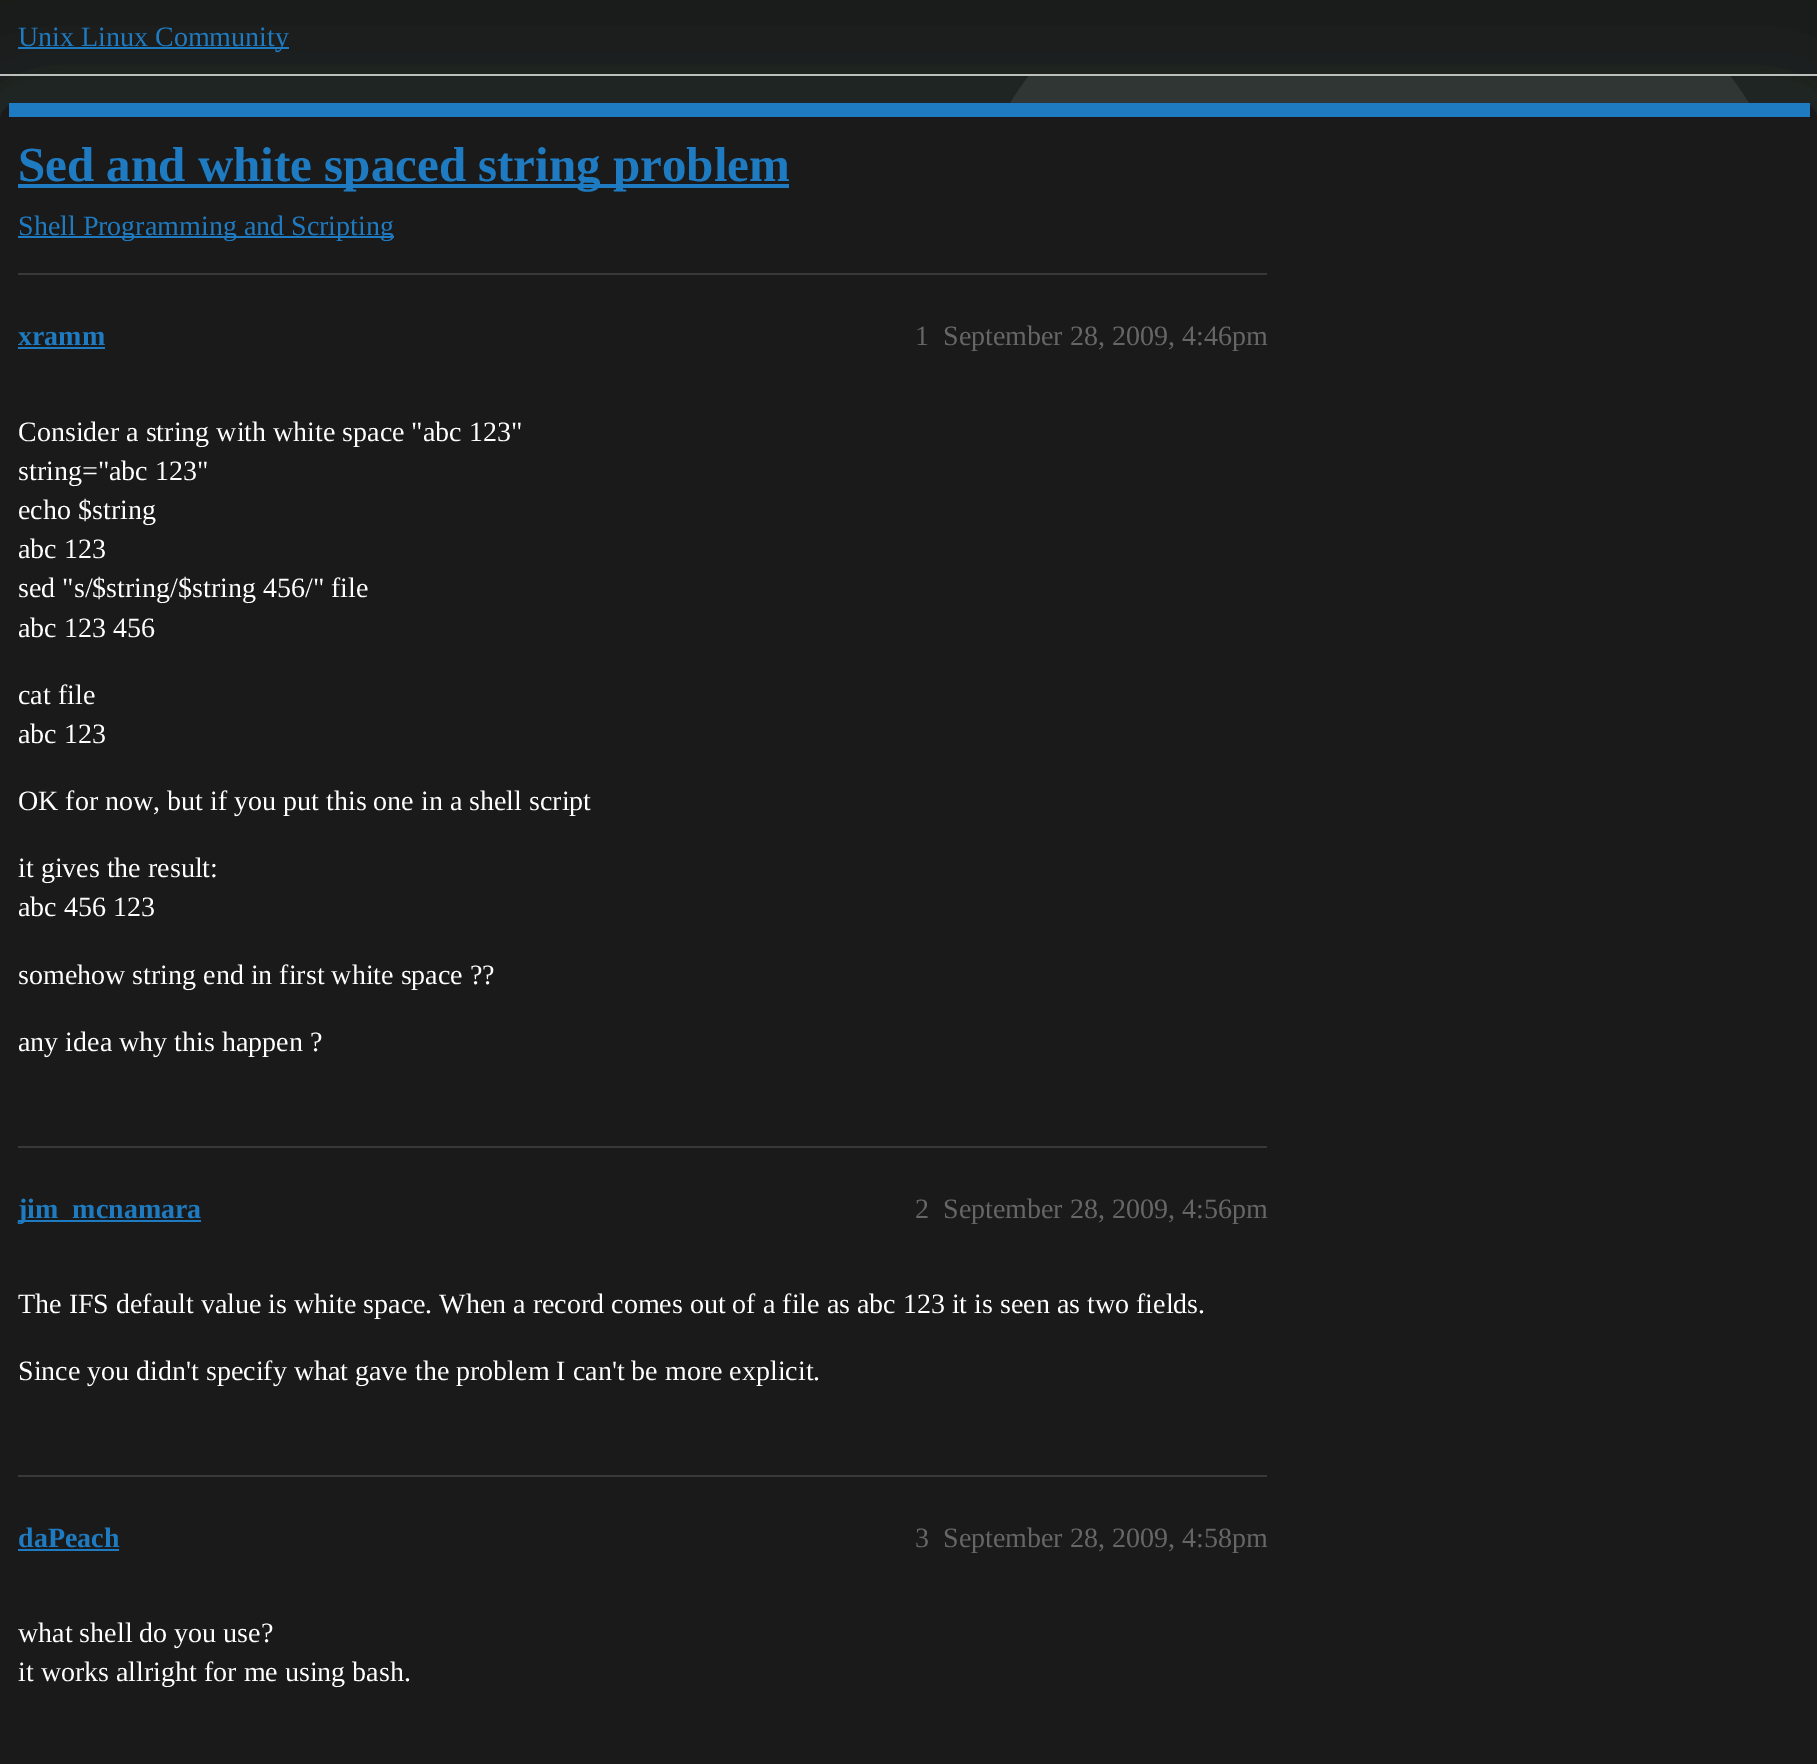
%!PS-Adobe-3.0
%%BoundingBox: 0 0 1817 1764
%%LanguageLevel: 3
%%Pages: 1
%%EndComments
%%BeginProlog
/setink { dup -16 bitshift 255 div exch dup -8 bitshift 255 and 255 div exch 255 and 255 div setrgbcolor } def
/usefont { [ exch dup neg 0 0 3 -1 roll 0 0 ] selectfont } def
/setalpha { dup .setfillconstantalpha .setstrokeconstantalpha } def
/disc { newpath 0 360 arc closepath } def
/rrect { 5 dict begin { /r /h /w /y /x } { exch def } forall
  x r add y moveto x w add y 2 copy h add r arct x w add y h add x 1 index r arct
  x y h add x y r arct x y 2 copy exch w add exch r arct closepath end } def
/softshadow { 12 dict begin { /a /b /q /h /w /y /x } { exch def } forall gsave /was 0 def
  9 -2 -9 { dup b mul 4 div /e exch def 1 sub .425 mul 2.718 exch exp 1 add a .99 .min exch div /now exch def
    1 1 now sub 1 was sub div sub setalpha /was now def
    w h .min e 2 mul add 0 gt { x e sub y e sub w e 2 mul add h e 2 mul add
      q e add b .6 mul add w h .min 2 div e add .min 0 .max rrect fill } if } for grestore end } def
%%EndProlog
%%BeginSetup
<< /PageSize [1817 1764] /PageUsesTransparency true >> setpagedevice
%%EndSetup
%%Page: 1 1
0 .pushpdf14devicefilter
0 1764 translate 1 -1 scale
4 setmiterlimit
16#1A1A1A setink
0 0 1817 1764 rectfill
16#2C2C2C setink
1379.5 337.5 437.5 disc fill
16#1A1A1A setink
1030 0 699 74 rectfill
16#BEBEBE setink
0 74 1817 2 rectfill
16#85FF67 setink
0 124 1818 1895 18 79 0.1 softshadow
16#6797FF setink
0 117 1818 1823 18 52.5 0.1 softshadow
16#1F7BC1 setink
18 47 271 2 rectfill
/LiberationSerif-Regular 28 usefont
18 46 moveto (Unix Linux Community) show
16#1A1A1A setink
0 103 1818 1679 18 rrect fill
16#1F7BC1 setink
9 103 1801 14 rectfill
18 184 771 4 rectfill
/LiberationSerif-Bold 49 usefont
18 181 moveto (Sed and white spaced string problem) show
18 236 376 2 rectfill
/LiberationSerif-Regular 28 usefont
18 235 moveto (Shell Programming and Scripting) show
16#383838 setink
18 273 1249 2 rectfill
/LiberationSerif-Bold 28 usefont
16#1F7BC1 setink
18 345 moveto (xramm) show
18 347 87 2 rectfill
/LiberationSerif-Regular 28 usefont
16#666666 setink
915 345 moveto (1) show
943 345 moveto (September 28, 2009, 4:46pm) show
16#FFFFFF setink
[
    [(Consider a string with white space "abc 123") 18 441]
    [(string="abc 123") 18 480]
    [(echo $string) 18 519]
    [(abc 123) 18 558]
    [(sed "s/$string/$string 456/" file) 18 597]
    [(abc 123 456) 18 637]
    [(cat file) 18 704]
    [(abc 123) 18 743]
    [(OK for now, but if you put this one in a shell script) 18 810]
    [(it gives the result:) 18 877]
    [(abc 456 123) 18 916]
    [(somehow string end in first white space ??) 18 984]
    [(any idea why this happen ?) 18 1051]
] { aload pop moveto show } forall
16#383838 setink
18 1146 1249 2 rectfill
16#1F7BC1 setink
18 1220 183 2 rectfill
/LiberationSerif-Bold 28 usefont
18 1218 moveto (jim_mcnamara) show
/LiberationSerif-Regular 28 usefont
16#666666 setink
915 1218 moveto (2) show
943 1218 moveto (September 28, 2009, 4:56pm) show
16#FFFFFF setink
18 1313 moveto (The IFS default value is white space. When a record comes out of a file as abc 123 it is seen as two fields.) show
18 1380 moveto (Since you didn't specify what gave the problem I can't be more explicit.) show
16#383838 setink
18 1475 1249 2 rectfill
/LiberationSerif-Bold 28 usefont
16#1F7BC1 setink
18 1547 moveto (daPeach) show
18 1549 101 2 rectfill
/LiberationSerif-Regular 28 usefont
16#666666 setink
915 1547 moveto (3) show
943 1547 moveto (September 28, 2009, 4:58pm) show
16#FFFFFF setink
18 1642 moveto (what shell do you use?) show
18 1681 moveto (it works allright for me using bash.) show
.poppdf14devicefilter showpage
%%EOF
